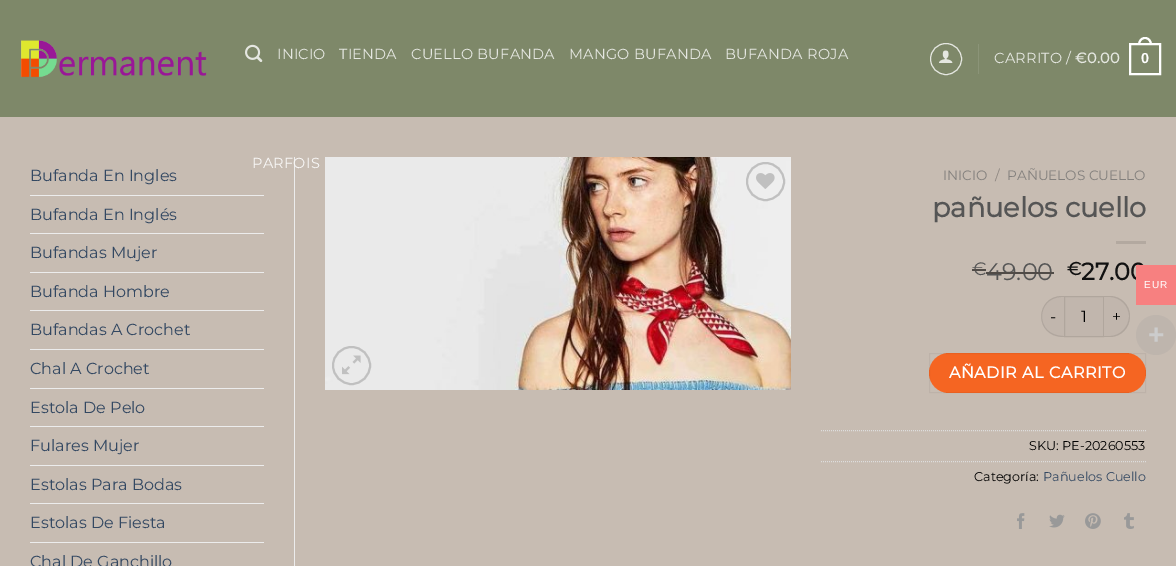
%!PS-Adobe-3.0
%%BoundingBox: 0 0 1176 566
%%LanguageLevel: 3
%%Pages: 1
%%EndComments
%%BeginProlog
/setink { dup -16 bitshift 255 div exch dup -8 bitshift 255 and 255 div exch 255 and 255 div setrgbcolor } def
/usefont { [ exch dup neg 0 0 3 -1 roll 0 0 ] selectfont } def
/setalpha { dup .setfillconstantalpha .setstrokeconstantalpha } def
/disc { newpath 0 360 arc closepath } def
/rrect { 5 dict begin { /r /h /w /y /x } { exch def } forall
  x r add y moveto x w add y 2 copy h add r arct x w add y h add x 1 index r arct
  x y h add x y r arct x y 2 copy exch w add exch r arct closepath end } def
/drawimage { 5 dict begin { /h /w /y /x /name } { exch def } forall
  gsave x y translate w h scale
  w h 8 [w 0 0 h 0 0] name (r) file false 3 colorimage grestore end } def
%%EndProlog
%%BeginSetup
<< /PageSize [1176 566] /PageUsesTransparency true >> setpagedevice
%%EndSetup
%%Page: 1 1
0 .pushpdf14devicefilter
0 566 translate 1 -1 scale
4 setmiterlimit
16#C7BCB2 setink
0 0 1176 566 rectfill
16#7E8869 setink
0 0 1176 117 rectfill
(img1.raw) 21 40 186 38 drawimage
(img2.raw) 245 44 18 18 drawimage
/Montserrat-Regular 14.5 usefont
16#E5E7E1 setink
277 59 moveto 0.25 0 (INICIO) ashow
339 59 moveto 0.25 0 (TIENDA) ashow
411 59 moveto 0.25 0 (CUELLO BUFANDA) ashow
569 59 moveto 0.25 0 (MANGO BUFANDA) ashow
725 59 moveto 0.25 0 (BUFANDA ROJA) ashow
16#ECECEC setink
294 157 1 409 rectfill
16#F8F7F6 setink
252 168 moveto 0.25 0 (PARFOIS) ashow
16#E5E7E1 setink
946 59 15.5 disc stroke
(img3.raw) 939 50 14 13 drawimage
16#8B9478 setink
978 44 1 30 rectfill
16#E5E7E1 setink
994 63 moveto 0.25 0 (CARRITO /) ashow
/Montserrat-Bold 14.5 usefont
1075 63 moveto 0.25 0 (€0.00) ashow
16#FFFFFF setink
2 setlinewidth
1130 44 30 30 rectstroke
1145 37 moveto 1149.5 37 1152 41 1152 45 curveto 1138 45 lineto 1138 41 1140.5 37 1145 37 curveto closepath 1145 39 moveto 1148.5 39 1150 42 1150 45 curveto 1140 45 lineto 1140 42 1141.5 39 1145 39 curveto closepath eofill
/LiberationSans-Bold 14.5 usefont
1141 63 moveto 0.25 0 (0) ashow
/Montserrat-Regular 16 usefont
16#334862 setink
30 181 moveto (Bufanda En Ingles) show
16#ECECEC setink
30 195 234 1 rectfill
16#334862 setink
30 220 moveto (Bufanda En Inglés) show
16#ECECEC setink
30 233 234 1 rectfill
16#334862 setink
30 258 moveto (Bufandas Mujer) show
16#ECECEC setink
30 272 234 1 rectfill
16#334862 setink
30 297 moveto (Bufanda Hombre) show
16#ECECEC setink
30 310 234 1 rectfill
16#334862 setink
30 335 moveto (Bufandas A Crochet) show
16#ECECEC setink
30 349 234 1 rectfill
16#334862 setink
30 374 moveto (Chal A Crochet) show
16#ECECEC setink
30 388 234 1 rectfill
16#334862 setink
30 413 moveto (Estola De Pelo) show
16#ECECEC setink
30 426 234 1 rectfill
16#334862 setink
30 451 moveto (Fulares Mujer) show
16#ECECEC setink
30 465 234 1 rectfill
16#334862 setink
30 490 moveto (Estolas Para Bodas) show
16#ECECEC setink
30 503 234 1 rectfill
16#334862 setink
30 528 moveto (Estolas De Fiesta) show
16#ECECEC setink
30 542 234 1 rectfill
16#334862 setink
30 567 moveto (Chal De Ganchillo) show
(img4.raw) 325 157 466 233 drawimage
16#C0C0C0 setink
765.5 181.5 18.5 disc stroke
(img5.raw) 756 173 19 16 drawimage
351.5 365.5 18.5 disc stroke
(img6.raw) 342 355 19 20 drawimage
/Montserrat-Regular 13.6 usefont
16#83807D setink
943 180 moveto (INICIO) show
16#8D8680 setink
995 180 moveto (/) show
16#83807D setink
1007 180 moveto (PAÑUELOS CUELLO) show
/Montserrat-Bold 27.25 usefont
16#555555 setink
932 217 moveto (pañuelos cuello) show
16#B3A9A0 setink
1116 241 30 3 rectfill
/Montserrat-Regular 18 usefont
16#555555 setink
972 275 moveto (€) show
16#504B47 setink
972 269 14 2 rectfill
/Montserrat-Regular 24 usefont
16#555555 setink
986 280 moveto (49.00) show
16#504B47 setink
986 272 68 2 rectfill
/Montserrat-Bold 18 usefont
16#111111 setink
1067 275 moveto (€) show
/Montserrat-Bold 24 usefont
1081 280 moveto (27.00) show
16#C1B6AD setink
1061.5 296 moveto 1064 296 lineto 1064 337 lineto 1061.5 337 lineto 1050 337 1041 328 1041 316.5 curveto 1041 305 1050 296 1061.5 296 curveto closepath fill
0.09 setalpha
16#000000 setink
1062 296 moveto 1064 296 lineto 1064 337 lineto 1033 337 1035 296 1062 296 curveto closepath 1062 297 moveto 1064 297 lineto 1064 336 lineto 1034 336 1036 297 1062 297 curveto closepath eofill
/Montserrat-Regular 16 usefont
1 setalpha
1050 322 moveto (-) show
16#C1B6AD setink
1064.5 296.5 moveto 1103.5 296.5 lineto 1103.5 336.5 lineto 1064.5 336.5 lineto closepath gsave fill grestore
16#B0A69D setink
1 setlinewidth
stroke
16#000000 setink
1081 322 moveto (1) show
16#C1B6AD setink
1104 296 moveto 1109.5 296 lineto 1121 296 1130 305 1130 316.5 curveto 1130 328 1121 337 1109.5 337 curveto 1104 337 lineto closepath fill
0.09 setalpha
16#000000 setink
1104 296 moveto 1110 296 lineto 1121 296 1130 305 1130 316 curveto 1130 328 1121 337 1110 337 curveto 1104 337 lineto closepath 1104 297 moveto 1110 297 lineto 1120 297 1129 306 1129 316 curveto 1129 327 1120 336 1110 336 curveto 1104 336 lineto closepath eofill
1 setalpha
1112 322 moveto (+) show
16#F56522 setink
929 353 217 40 20 rrect fill
0.05 setalpha
16#000000 setink
929.5 353.5 216 39 rectstroke
/Montserrat-Bold 16 usefont
1 setalpha
16#FFFFFF setink
949 378 moveto 0.5 0 (AÑADIR AL CARRITO) ashow
16#DDDDDD setink
[1 1] 0 setdash
821 430.5 moveto 1146 430.5 lineto stroke
/Montserrat-Regular 12.75 usefont
16#000000 setink
1029 450 moveto (SKU: PE-20260553) show
16#DDDDDD setink
821 461.5 moveto 1146 461.5 lineto stroke
16#000000 setink
974 481 moveto (Categoría:) show
16#334862 setink
1043 481 moveto (Pañuelos Cuello) show
(img7.raw) 1017 513 8 16 drawimage
(img8.raw) 1049 514 16 14 drawimage
(img9.raw) 1085 513 16 16 drawimage
(img10.raw) 1124 513 10 16 drawimage
16#F78080 setink
1136 265 40 40 rectfill
/LiberationSans-Regular 10 usefont
16#FFFFFF setink
1144 288 moveto 1 0 (EUR) ashow
16#BEB5AD setink
1156 335 20 disc fill
/LiberationSans-Bold 28 usefont
16#CCCCCC setink
1148 344 moveto (+) show
.poppdf14devicefilter showpage
%%EOF
